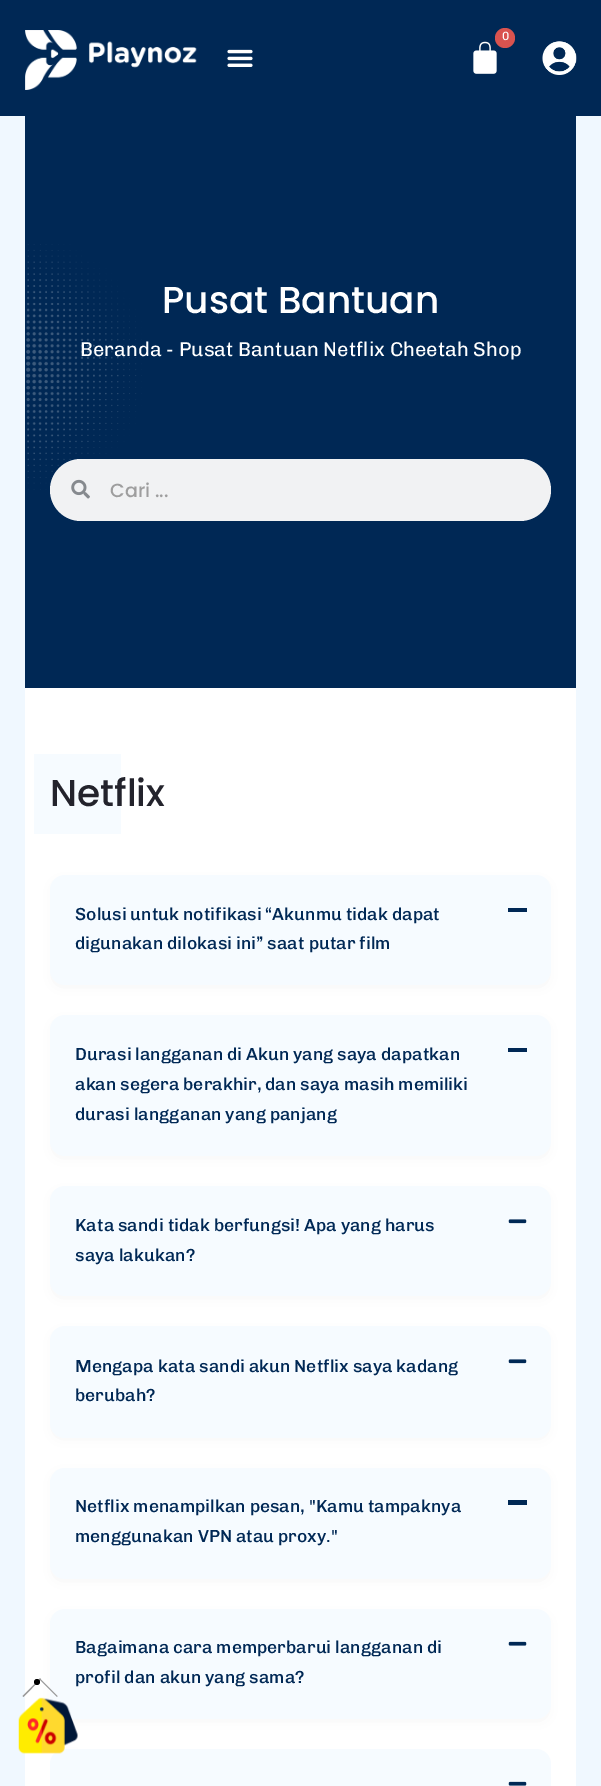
%!PS-Adobe-3.0
%%BoundingBox: 0 0 601 1786
%%LanguageLevel: 3
%%Pages: 1
%%EndComments
%%BeginProlog
/setink { dup -16 bitshift 255 div exch dup -8 bitshift 255 and 255 div exch 255 and 255 div setrgbcolor } def
/usefont { [ exch dup neg 0 0 3 -1 roll 0 0 ] selectfont } def
/setalpha { dup .setfillconstantalpha .setstrokeconstantalpha } def
/disc { newpath 0 360 arc closepath } def
/rrect { 5 dict begin { /r /h /w /y /x } { exch def } forall
  x r add y moveto x w add y 2 copy h add r arct x w add y h add x 1 index r arct
  x y h add x y r arct x y 2 copy exch w add exch r arct closepath end } def
/softshadow { 12 dict begin { /a /b /q /h /w /y /x } { exch def } forall gsave /was 0 def
  9 -2 -9 { dup b mul 4 div /e exch def 1 sub .425 mul 2.718 exch exp 1 add a .99 .min exch div /now exch def
    1 1 now sub 1 was sub div sub setalpha /was now def
    w h .min e 2 mul add 0 gt { x e sub y e sub w e 2 mul add h e 2 mul add
      q e add b .6 mul add w h .min 2 div e add .min 0 .max rrect fill } if } for grestore end } def
/drawimage { 5 dict begin { /h /w /y /x /name } { exch def } forall
  gsave x y translate w h scale
  w h 8 [w 0 0 h 0 0] name (r) file false 3 colorimage grestore end } def
%%EndProlog
%%BeginSetup
<< /PageSize [601 1786] /PageUsesTransparency true >> setpagedevice
%%EndSetup
%%Page: 1 1
0 .pushpdf14devicefilter
0 1786 translate 1 -1 scale
4 setmiterlimit
16#F0F8FF setink
0 0 601 1786 rectfill
16#002855 setink
0 0 601 116 rectfill
(img1.raw) 25 30 172 60 drawimage
(img2.raw) 473 41 24 33 drawimage
16#D9534F setink
505 38 10 disc fill
/Chivo-Regular 12 usefont
16#FFFFFF setink
502 40 moveto (0) show
(img3.raw) 542 41 35 34 drawimage
(img4.raw) 227 49 26 18 drawimage
25 688 551 1098 rectfill
16#000000 setink
60 1623 481 90 0 7.5 0.13 softshadow
16#F6FBFF setink
50 1609 501 110 15 rrect fill
16#999999 setink
40 1678.5 moveto 57.5 1696 lineto 57 1697 lineto 39 1679 lineto closepath fill
40 1678.5 moveto 41 1679 lineto 23.5 1697 lineto 22.5 1696 lineto closepath fill
16#000000 setink
37 1682 3 disc fill
16#F6FBFF setink
50 1749 501 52 15 rrect fill
(img5.raw) 18 1697 60 57 drawimage
16#002855 setink
25 116 551 572 rectfill
(img6.raw) 26 244 116 246 drawimage
/Poppins-Medium 37.5 usefont
16#FFFFFF setink
162 313 moveto (Pusat Bantuan) show
/Chivo-Regular 20 usefont
80 356 moveto (Beranda - Pusat Bantuan Netflix Cheetah Shop) show
16#F1F2F3 setink
50 459 501 62 31 rrect fill
(img7.raw) 71 479 19 20 drawimage
/Poppins-Medium 19 usefont
16#9E9E9E setink
110 497 moveto (Cari ...) show
16#F6FBFF setink
34 754 87 80 rectfill
/Poppins-Medium 37.5 usefont
16#23232C setink
50 806 moveto (Netflix) show
16#000000 setink
60 889 481 90 0 7.5 0.13 softshadow
16#F6FBFF setink
50 875 501 110 15 rrect fill
/Chivo-Medium 17.5 usefont
16#002855 setink
75 920 moveto (Solusi untuk notifikasi “Akunmu tidak dapat) show
508 908 19 4 rectfill
75 949 moveto (digunakan dilokasi ini” saat putar film) show
16#000000 setink
60 1029 481 121 0 7.5 0.13 softshadow
16#F6FBFF setink
50 1015 501 141 15 rrect fill
16#002855 setink
75 1060 moveto (Durasi langganan di Akun yang saya dapatkan) show
508 1048 19 4 rectfill
75 1090 moveto (akan segera berakhir, dan saya masih memiliki) show
75 1120 moveto (durasi langganan yang panjang) show
16#000000 setink
60 1200 481 90 0 7.5 0.13 softshadow
16#F6FBFF setink
50 1186 501 110 15 rrect fill
16#002855 setink
75 1231 moveto (Kata sandi tidak berfungsi! Apa yang harus) show
(img8.raw) 508 1219 19 5 drawimage
75 1261 moveto (saya lakukan?) show
16#000000 setink
60 1340 481 91 0 7.5 0.13 softshadow
16#F6FBFF setink
50 1326 501 112 15 rrect fill
16#002855 setink
75 1372 moveto (Mengapa kata sandi akun Netflix saya kadang) show
(img8.raw) 508 1359 19 5 drawimage
75 1401 moveto (berubah?) show
16#000000 setink
60 1481 481 92 0 7.5 0.13 softshadow
16#F6FBFF setink
50 1468 501 111 15 rrect fill
16#002855 setink
75 1512 moveto (Netflix menampilkan pesan, "Kamu tampaknya) show
508 1500 19 5 rectfill
75 1542 moveto (menggunakan VPN atau proxy.") show
75 1653 moveto (Bagaimana cara memperbarui langganan di) show
(img9.raw) 508 1641 19 5 drawimage
75 1683 moveto (profil dan akun yang sama?) show
(img9.raw) 508 1781 19 5 drawimage
.poppdf14devicefilter showpage
%%EOF
